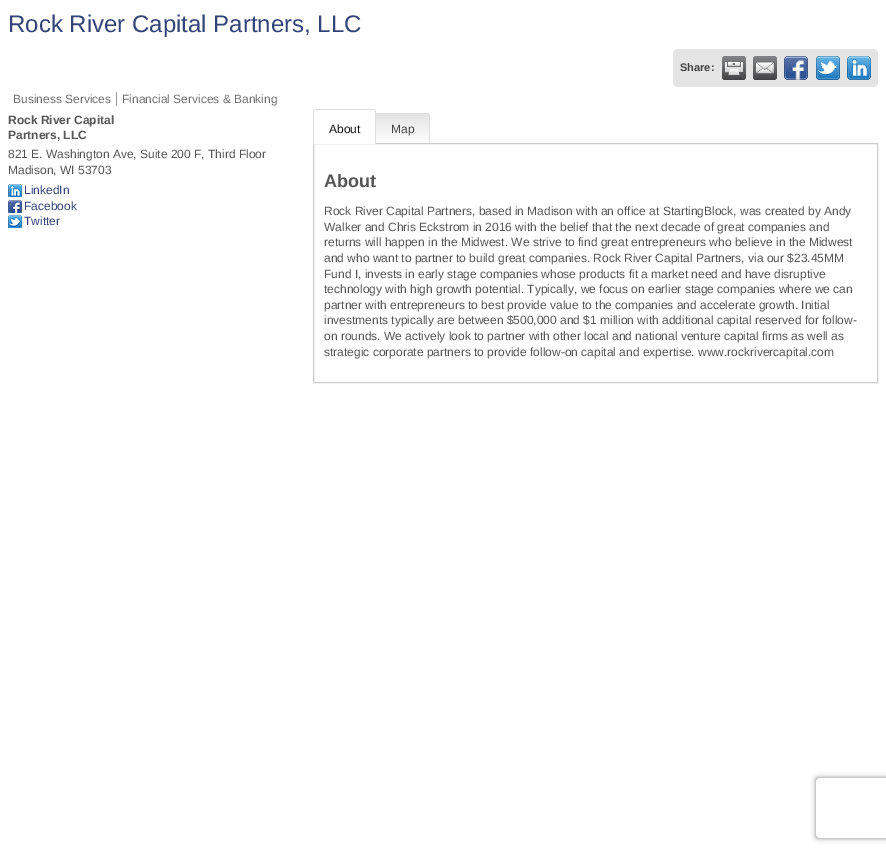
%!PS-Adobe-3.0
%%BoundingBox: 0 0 886 852
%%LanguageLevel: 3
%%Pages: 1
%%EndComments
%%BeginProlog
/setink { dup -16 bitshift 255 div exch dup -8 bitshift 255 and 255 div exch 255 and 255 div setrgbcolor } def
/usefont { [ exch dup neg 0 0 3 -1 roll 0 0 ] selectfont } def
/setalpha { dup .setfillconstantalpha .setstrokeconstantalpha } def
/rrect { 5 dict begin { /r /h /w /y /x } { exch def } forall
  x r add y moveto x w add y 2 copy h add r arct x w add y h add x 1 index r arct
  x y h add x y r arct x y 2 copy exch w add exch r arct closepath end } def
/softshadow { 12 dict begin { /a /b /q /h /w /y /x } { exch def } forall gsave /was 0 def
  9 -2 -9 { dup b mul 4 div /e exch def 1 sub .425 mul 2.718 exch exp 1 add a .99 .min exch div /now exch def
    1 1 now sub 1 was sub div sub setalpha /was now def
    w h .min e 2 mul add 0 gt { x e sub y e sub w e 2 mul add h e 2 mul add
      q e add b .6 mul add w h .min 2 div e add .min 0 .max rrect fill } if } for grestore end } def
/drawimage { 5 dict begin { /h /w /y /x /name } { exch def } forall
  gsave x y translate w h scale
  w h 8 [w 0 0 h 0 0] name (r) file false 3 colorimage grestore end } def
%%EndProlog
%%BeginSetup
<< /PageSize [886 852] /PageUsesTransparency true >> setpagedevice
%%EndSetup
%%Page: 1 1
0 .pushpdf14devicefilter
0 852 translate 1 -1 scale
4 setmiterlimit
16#FFFFFF setink
0 0 886 852 rectfill
/LiberationSans-Regular 24 usefont
16#334477 setink
8 32 moveto (Rock River Capital Partners, LLC) show
16#E4E4E4 setink
673 49 205 38 5 rrect fill
/LiberationSans-Bold 11 usefont
16#444444 setink
680 71 moveto (Share:) show
(img1.raw) 722 56 24 24 drawimage
(img2.raw) 753 56 24 24 drawimage
(img3.raw) 784 56 24 24 drawimage
(img4.raw) 816 56 24 24 drawimage
(img5.raw) 847 56 24 24 drawimage
/LiberationSans-Regular 12 usefont
16#706E6E setink
13 103 moveto (Business Services) show
122 103 moveto (Financial Services & Banking) show
16#999999 setink
116 92 1 14 rectfill
/LiberationSans-Bold 12 usefont
16#565555 setink
8 124 moveto (Rock River Capital) show
8 139 moveto (Partners, LLC) show
/LiberationSans-Regular 12 usefont
8 158 moveto (821 E. Washington Ave, Suite 200 F, Third Floor) show
8 174 moveto (Madison, WI 53703) show
(img6.raw) 8 184 14 13 drawimage
16#334477 setink
24 194 moveto (LinkedIn) show
(img7.raw) 8 200 14 13 drawimage
24 210 moveto (Facebook) show
(img8.raw) 8 215 14 13 drawimage
24 225 moveto (Twitter) show
16#CCCCCC setink
313.5 143.5 564 239 rectstroke
16#FFFFFF setink
315 110 moveto 374 110 lineto 374.5 110 375 110.5 375 111 curveto 375 144 lineto 314 144 lineto 314 111 lineto 314 110.5 314.5 110 315 110 curveto closepath fill
[
    [314 109 61 1 16#DDDDDD]
    [375 110 1 34 16#DDDDDD]
    [313 110 1 34 16#DDDDDD]
] { aload pop setink rectfill } forall
16#111111 setink
329 133 moveto (About) show
gsave 376 114 moveto 428 114 lineto 428.5 114 429 114.5 429 115 curveto 429 143 lineto 376 143 lineto closepath clip newpath
<< /ShadingType 2 /ColorSpace /DeviceRGB /Coords [403 114 403 143] /Extend [true true] /Function << /FunctionType 2 /Domain [0 1] /C0 [0.894 0.894 0.894] /C1 [1 1 1] /N 1 >> >> shfill grestore
16#DDDDDD setink
376 113 53 1 rectfill
429 114 1 29 rectfill
16#444444 setink
391 133 moveto (Map) show
/LiberationSans-Bold 18 usefont
16#565555 setink
324 187 moveto (About) show
/LiberationSans-Regular 12 usefont
[
    [(Rock River Capital Partners, based in Madison with an office at StartingBlock, was created by Andy) 324 215]
    [(Walker and Chris Eckstrom in 2016 with the belief that the next decade of great companies and) 324 231]
    [(returns will happen in the Midwest. We strive to find great entrepreneurs who believe in the Midwest) 324 246]
    [(and who want to partner to build great companies. Rock River Capital Partners, via our $23.45MM) 324 262]
    [(Fund I, invests in early stage companies whose products fit a market need and have disruptive) 324 278]
    [(technology with high growth potential. Typically, we focus on earlier stage companies where we can) 324 293]
    [(partner with entrepreneurs to best provide value to the companies and accelerate growth. Initial) 324 309]
    [(investments typically are between $500,000 and $1 million with additional capital reserved for follow-) 324 324]
    [(on rounds. We actively look to partner with other local and national venture capital firms as well as) 324 340]
    [(strategic corporate partners to provide follow-on capital and expertise. www.rockrivercapital.com) 324 356]
] { aload pop moveto show } forall
gsave
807 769 moveto 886 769 lineto 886 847 lineto 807 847 lineto closepath 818 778 moveto 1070 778 lineto 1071 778 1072 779 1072 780 curveto 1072 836 lineto 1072 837 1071 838 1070 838 curveto 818 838 lineto 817 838 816 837 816 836 curveto 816 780 lineto 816 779 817 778 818 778 curveto closepath eoclip newpath
16#808080 setink
816 778 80 60 2 2.5 1 softshadow
grestore
.poppdf14devicefilter showpage
%%EOF
